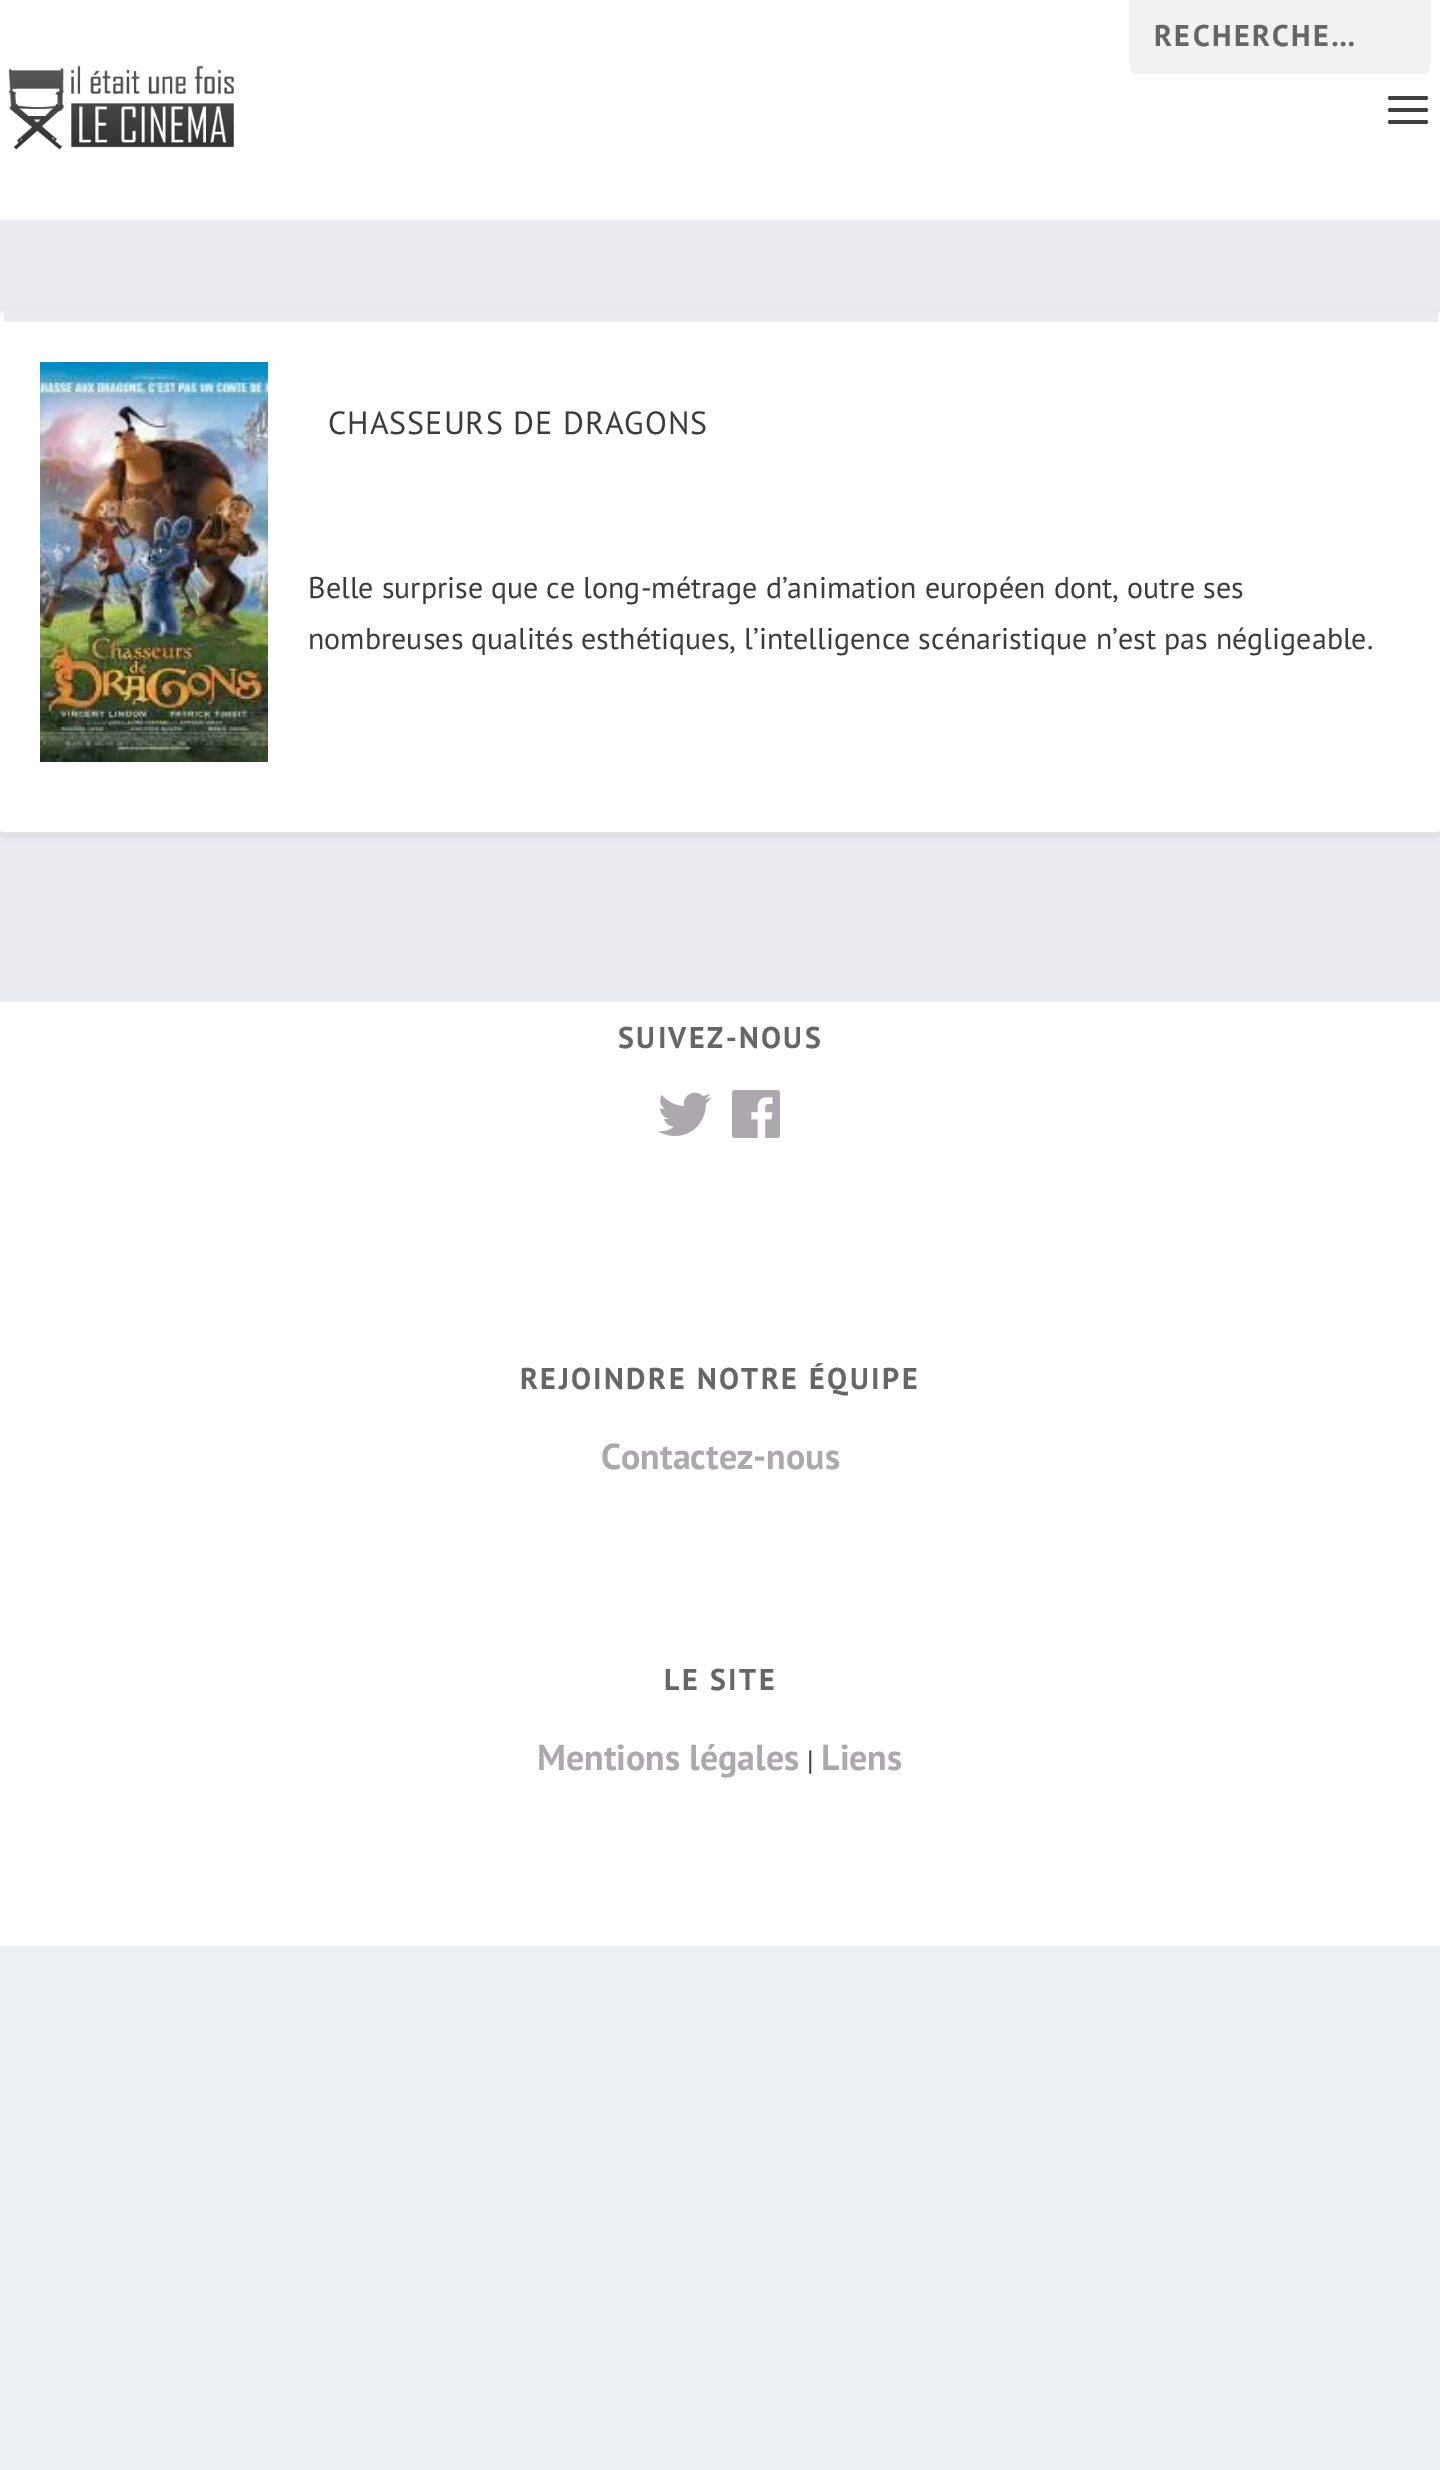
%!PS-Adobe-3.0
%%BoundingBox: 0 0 1440 2470
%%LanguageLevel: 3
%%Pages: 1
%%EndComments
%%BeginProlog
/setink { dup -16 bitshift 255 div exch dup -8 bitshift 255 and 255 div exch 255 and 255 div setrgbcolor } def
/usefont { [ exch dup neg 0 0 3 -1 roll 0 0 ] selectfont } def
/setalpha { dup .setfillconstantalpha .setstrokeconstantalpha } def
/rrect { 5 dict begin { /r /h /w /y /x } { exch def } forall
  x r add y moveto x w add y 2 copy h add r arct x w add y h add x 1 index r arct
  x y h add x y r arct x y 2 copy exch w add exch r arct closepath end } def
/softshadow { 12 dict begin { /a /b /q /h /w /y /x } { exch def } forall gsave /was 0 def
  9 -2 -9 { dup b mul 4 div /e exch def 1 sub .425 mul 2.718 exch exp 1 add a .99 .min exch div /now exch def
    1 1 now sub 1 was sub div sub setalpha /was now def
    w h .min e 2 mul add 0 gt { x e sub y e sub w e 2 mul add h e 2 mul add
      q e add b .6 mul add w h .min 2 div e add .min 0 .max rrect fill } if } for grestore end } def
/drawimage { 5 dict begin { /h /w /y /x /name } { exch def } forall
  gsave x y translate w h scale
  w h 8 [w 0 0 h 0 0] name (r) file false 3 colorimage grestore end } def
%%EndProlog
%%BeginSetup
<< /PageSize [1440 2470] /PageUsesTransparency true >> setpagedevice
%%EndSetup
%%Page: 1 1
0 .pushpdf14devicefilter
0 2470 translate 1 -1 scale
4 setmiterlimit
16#ECF0F5 setink
0 0 1440 2470 rectfill
16#FFFFFF setink
0 0 1440 220 rectfill
16#F2F2F2 setink
1130 -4 300 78 6 rrect fill
/PTSans-Bold 30 usefont
16#666666 setink
1154 46 moveto 2.4 0 (RECHERCHE…) ashow
16#EAECF1 setink
0 220 1440 782 rectfill
(img1.raw) 8 65 226 85 drawimage
16#404040 setink
1388 96 40 4 2 rrect fill
1388 108 40 4 2 rrect fill
1388 120 40 4 2 rrect fill
16#000000 setink
0 312 1440 524 6 3 0.1 softshadow
16#FFFFFF setink
0 310 1440 524 6 rrect fill
16#EAECF1 setink
4 310 1434 12 rectfill
0.1 setalpha
16#000000 setink
6 834 moveto 1434 834 lineto 1436 834 1437 833 1438 832 curveto 2 832 lineto 3 833 4 834 6 834 curveto closepath fill
1 setalpha
(img2.raw) 40 362 228 400 drawimage
/PTSans-Regular 32 usefont
16#3C3C3C setink
328 434 moveto 1 0 (CHASSEURS DE DRAGONS) ashow
/PTSans-Regular 30 usefont
308 598 moveto (Belle surprise que ce long-métrage d’animation européen dont, outre ses) show
308 649 moveto (nombreuses qualités esthétiques, l’intelligence scénaristique n’est pas négligeable.) show
16#FFFFFF setink
0 1002 1440 944 rectfill
/PTSans-Bold 30 usefont
16#666666 setink
618 1048 moveto 2.4 0 (SUIVEZ-NOUS) ashow
(img3.raw) 658 1092 53 44 drawimage
(img4.raw) 732 1090 48 48 drawimage
520 1389 moveto 2.4 0 (REJOINDRE NOTRE ÉQUIPE) ashow
/PTSans-Bold 36 usefont
16#ADA8AD setink
601 1469 moveto (Contactez-nous) show
/PTSans-Bold 30 usefont
16#666666 setink
664 1690 moveto 2.4 0 (LE SITE) ashow
/PTSans-Bold 36 usefont
16#ADA8AD setink
537 1770 moveto (Mentions légales) show
/PTSans-Regular 28 usefont
16#3C3C3C setink
807 1770 moveto (|) show
/PTSans-Bold 36 usefont
16#ADA8AD setink
821 1770 moveto (Liens) show
.poppdf14devicefilter showpage
%%EOF
